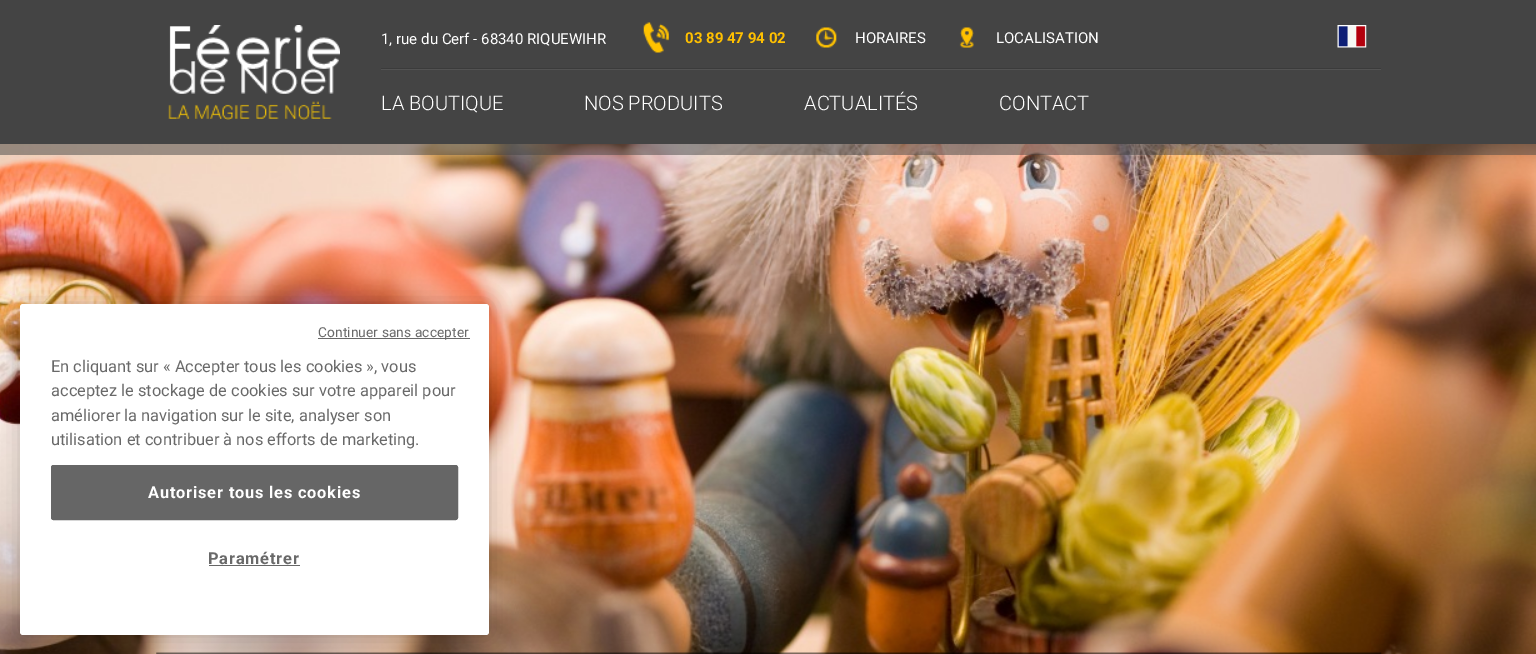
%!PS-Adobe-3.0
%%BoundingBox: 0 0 1536 654
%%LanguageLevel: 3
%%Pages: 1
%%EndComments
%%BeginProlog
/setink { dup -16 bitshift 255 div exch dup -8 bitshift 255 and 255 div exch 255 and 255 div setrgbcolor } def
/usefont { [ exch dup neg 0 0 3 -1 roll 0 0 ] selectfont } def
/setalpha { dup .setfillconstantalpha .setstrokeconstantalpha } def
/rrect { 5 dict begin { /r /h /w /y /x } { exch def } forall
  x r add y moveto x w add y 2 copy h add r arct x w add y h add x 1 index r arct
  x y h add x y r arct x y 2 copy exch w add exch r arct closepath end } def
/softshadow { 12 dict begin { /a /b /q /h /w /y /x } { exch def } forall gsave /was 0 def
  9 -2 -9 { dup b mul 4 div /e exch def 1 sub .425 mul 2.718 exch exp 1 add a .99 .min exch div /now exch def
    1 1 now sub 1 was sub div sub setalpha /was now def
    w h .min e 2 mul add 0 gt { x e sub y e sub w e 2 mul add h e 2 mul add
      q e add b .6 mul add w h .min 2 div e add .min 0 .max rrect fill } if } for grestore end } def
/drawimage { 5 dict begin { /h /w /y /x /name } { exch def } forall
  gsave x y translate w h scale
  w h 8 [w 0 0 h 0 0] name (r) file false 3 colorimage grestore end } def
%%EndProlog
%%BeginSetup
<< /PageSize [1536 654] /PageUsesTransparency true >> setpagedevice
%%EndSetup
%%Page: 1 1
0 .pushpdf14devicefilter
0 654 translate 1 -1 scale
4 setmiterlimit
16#FFFFFF setink
0 0 1536 654 rectfill
16#444444 setink
0 0 1536 144 rectfill
(img6.raw) 0 144 1536 510 drawimage
0.5 setalpha
0 144 1536 11 rectfill
1 setalpha
(img1.raw) 168 25 172 95 drawimage
16#3B3B3B setink
381 68 1000 1 rectfill
/Roboto-Regular 15 usefont
16#FFFFFF setink
381 44 moveto (1, rue du Cerf - 68340 RIQUEWIHR) show
(img2.raw) 643 22 26 31 drawimage
/Roboto-Bold 15 usefont
16#FFC000 setink
685 43 moveto (03 89 47 94 02) show
(img3.raw) 816 27 21 21 drawimage
/Roboto-Regular 15 usefont
16#FFFFFF setink
855 43 moveto (HORAIRES) show
(img4.raw) 959 27 15 21 drawimage
996 43 moveto (LOCALISATION) show
(img5.raw) 1337 25 30 23 drawimage
16#535353 setink
381 69 1000 1 rectfill
/Roboto-Light 20 usefont
16#FFFFFF setink
[
    [(LA BOUTIQUE) 381 110]
    [(NOS PRODUITS) 584 110]
    [(ACTUALITÉS) 804 110]
    [(CONTACT) 999 110]
] { aload pop moveto show } forall
(img7.raw) 156 652 1226 2 drawimage
16#000000 setink
20 304 469 331 3 11 0.2 softshadow
16#FFFFFF setink
20 304 469 331 3 rrect fill
16#696969 setink
318 338 152 1 rectfill
/Roboto-Regular 13.75 usefont
318 337 moveto 0.1 0 (Continuer sans accepter) ashow
/Roboto-Regular 16.4 usefont
[
    [(En cliquant sur « Accepter tous les cookies », vous) 51 372]
    [(acceptez le stockage de cookies sur votre appareil pour) 51 396]
    [(améliorer la navigation sur le site, analyser son) 51 421]
    [(utilisation et contribuer à nos efforts de marketing.) 51 445]
] { aload pop moveto show } forall
16#666666 setink
51.5 465.5 406 54 2 rrect gsave fill grestore
stroke
/Roboto-Bold 16.4 usefont
16#FFFFFF setink
148 498 moveto 0.8 0 (Autoriser tous les cookies) ashow
16#696969 setink
208 564 moveto 0.8 0 (Paramétrer) ashow
16#666666 setink
209 565 91 1 rectfill
.poppdf14devicefilter showpage
%%EOF
